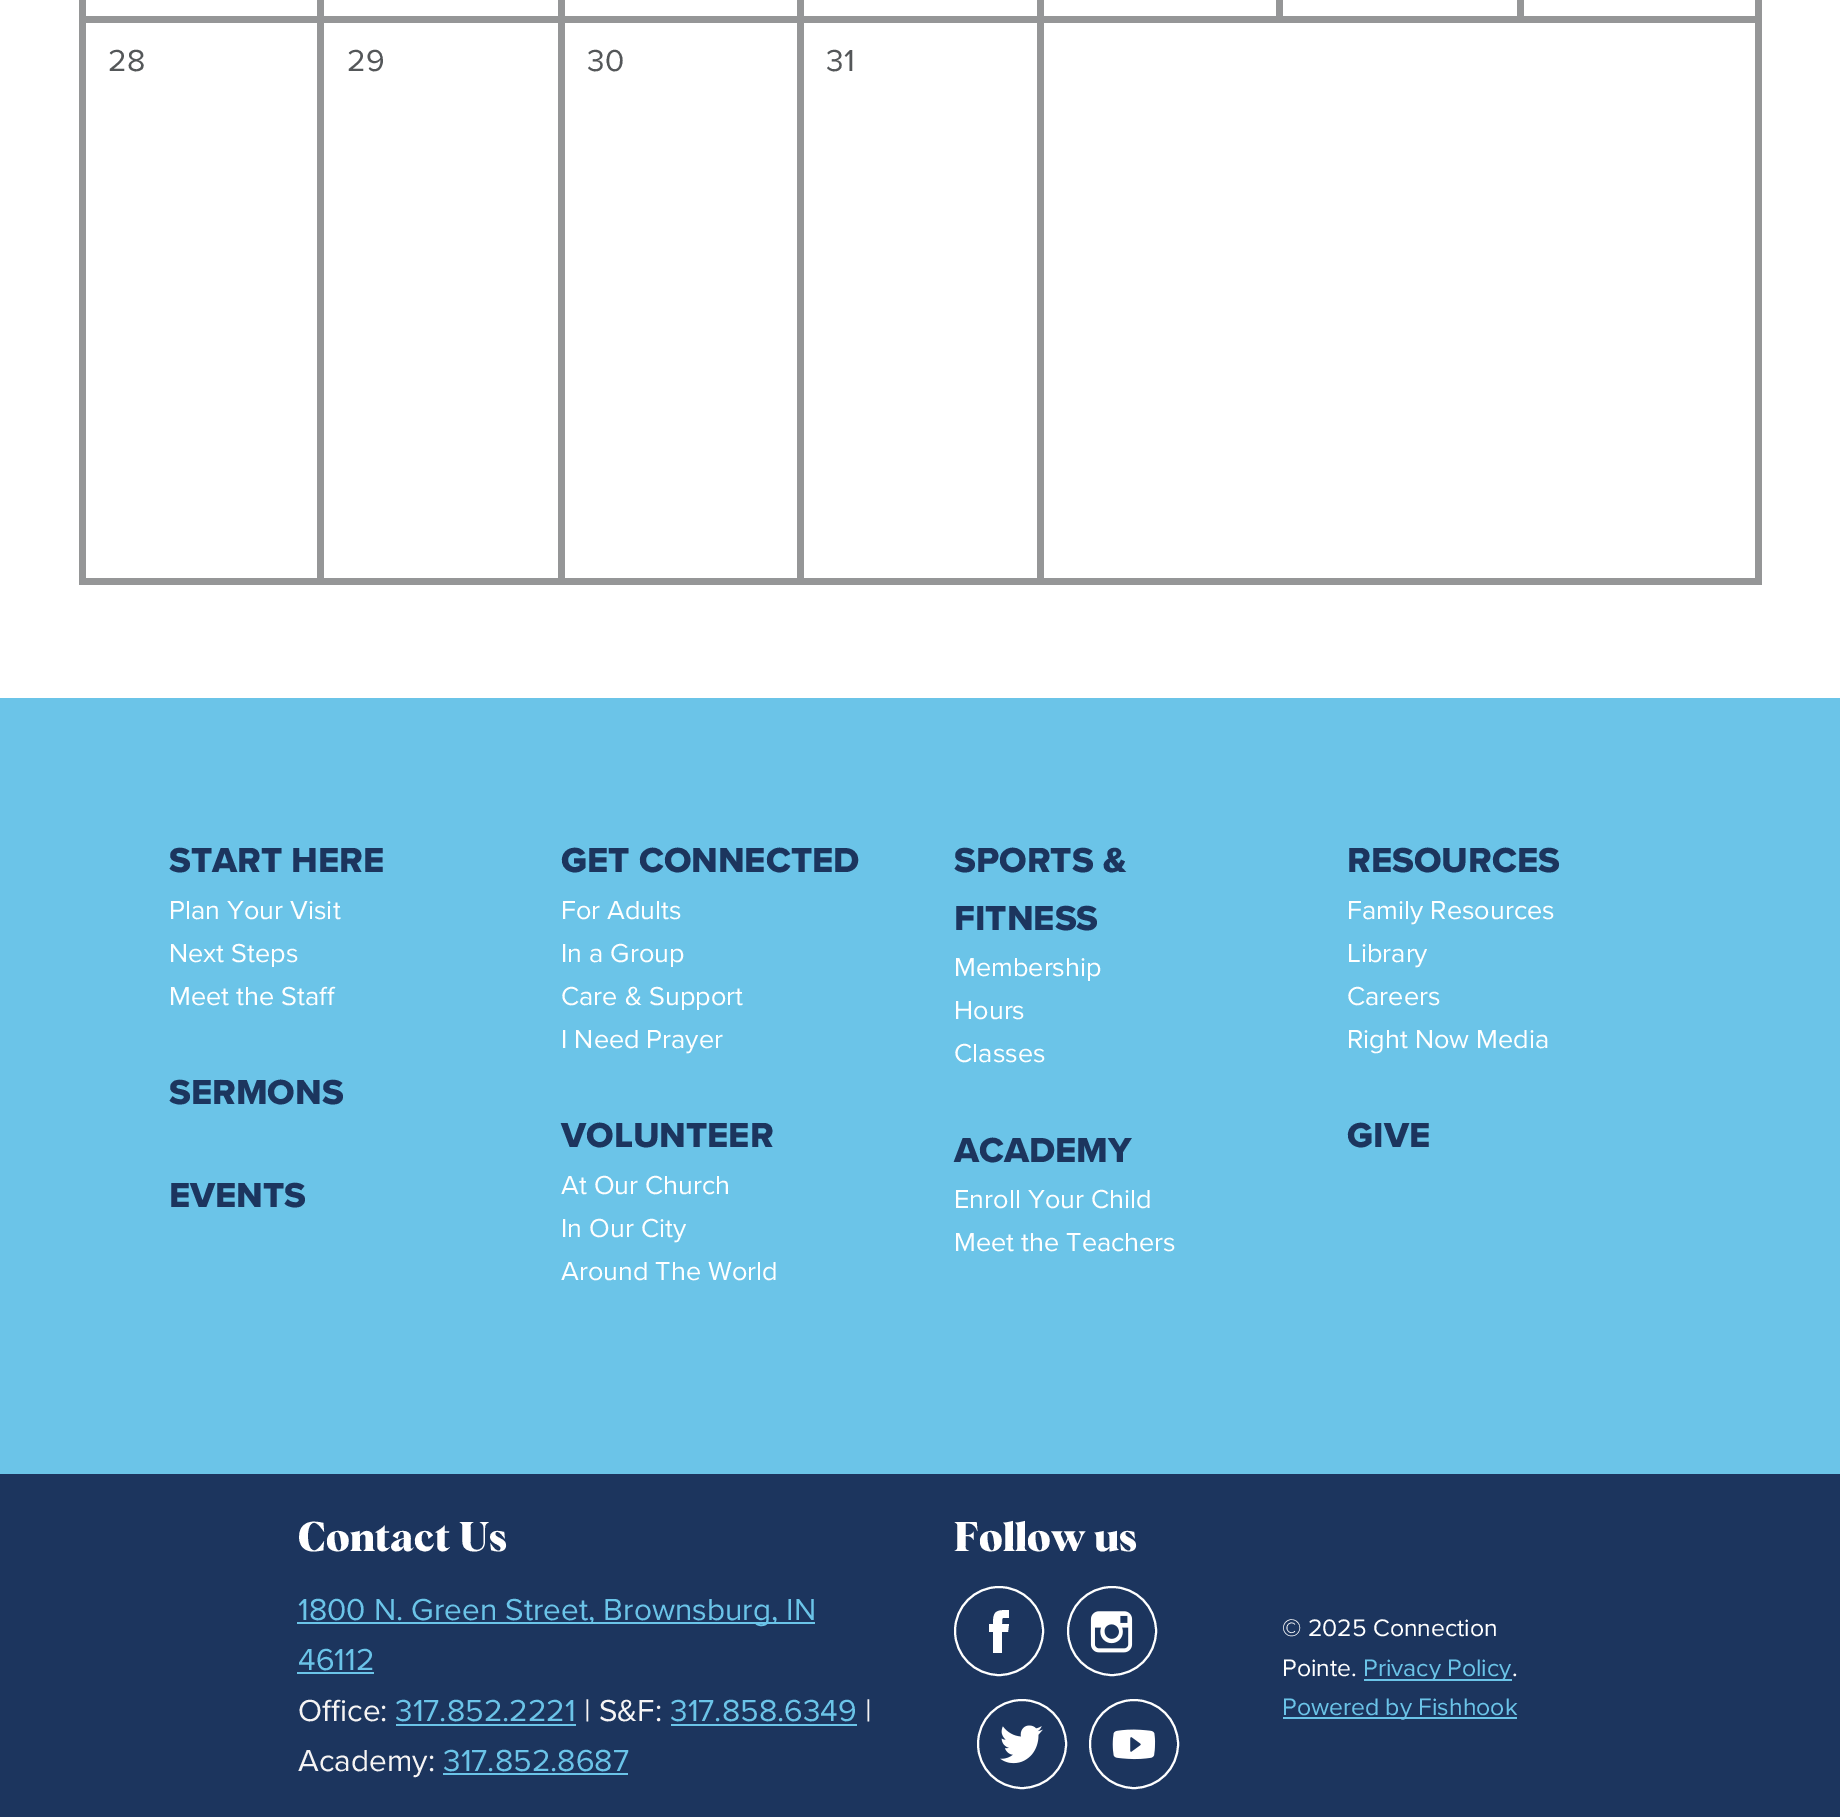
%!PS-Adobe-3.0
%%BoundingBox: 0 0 1840 1817
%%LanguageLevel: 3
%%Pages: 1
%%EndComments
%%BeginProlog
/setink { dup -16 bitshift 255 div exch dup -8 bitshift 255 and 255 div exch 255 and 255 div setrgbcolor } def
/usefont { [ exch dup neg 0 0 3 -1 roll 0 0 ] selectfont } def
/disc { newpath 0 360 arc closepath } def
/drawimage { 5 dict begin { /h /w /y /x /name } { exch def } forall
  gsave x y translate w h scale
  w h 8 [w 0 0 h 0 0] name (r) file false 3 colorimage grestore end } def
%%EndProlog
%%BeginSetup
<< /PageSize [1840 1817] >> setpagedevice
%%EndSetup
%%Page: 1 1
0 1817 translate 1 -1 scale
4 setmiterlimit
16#FFFFFF setink
0 0 1840 1817 rectfill
[
    [1037 16 725 7 16#959697]
    [1755 0 7 585 16#959697]
    [1037 578 725 7 16#959697]
    [1037 16 7 569 16#959697]
    [797 16 247 7 16#959697]
    [797 578 247 7 16#959697]
    [797 16 7 569 16#959697]
    [558 16 245 7 16#959697]
    [558 578 245 7 16#959697]
    [558 16 7 569 16#959697]
    [317 16 248 7 16#959697]
    [317 578 248 7 16#959697]
    [317 16 7 569 16#959697]
    [79 16 245 7 16#959697]
    [317 0 7 23 16#959697]
    [558 0 7 23 16#959697]
    [797 0 7 23 16#959697]
    [1037 0 7 23 16#959697]
    [1276 0 7 23 16#959697]
    [1517 0 7 23 16#959697]
    [79 578 245 7 16#959697]
    [79 0 7 585 16#959697]
] { aload pop setink rectfill } forall
/ProximaNova-Regular 31.5 usefont
16#545759 setink
[
    [(28) 108 71]
    [(29) 347 71]
    [(30) 587 71]
    [(31) 826 71]
] { aload pop moveto show } forall
16#6BC4E8 setink
0 698 1840 776 rectfill
/ProximaNova-ExtraBold 36 usefont
16#1C355E setink
169 872 moveto (START HERE) show
/ProximaNova-Regular 27 usefont
16#FFFFFF setink
[
    [(Plan Your Visit) 169 919]
    [(Next Steps) 169 962]
    [(Meet the Staff) 169 1005]
] { aload pop moveto show } forall
/ProximaNova-ExtraBold 36 usefont
16#1C355E setink
[
    [(SERMONS) 169 1104]
    [(EVENTS) 169 1207]
    [(GET CONNECTED) 561 872]
] { aload pop moveto show } forall
/ProximaNova-Regular 27 usefont
16#FFFFFF setink
[
    [(For Adults) 561 919]
    [(In a Group) 561 962]
    [(Care & Support) 561 1005]
    [(I Need Prayer) 561 1048]
] { aload pop moveto show } forall
/ProximaNova-ExtraBold 36 usefont
16#1C355E setink
561 1147 moveto (VOLUNTEER) show
/ProximaNova-Regular 27 usefont
16#FFFFFF setink
[
    [(At Our Church) 561 1194]
    [(In Our City) 561 1237]
    [(Around The World) 561 1280]
] { aload pop moveto show } forall
/ProximaNova-ExtraBold 36 usefont
16#1C355E setink
954 872 moveto (SPORTS &) show
954 930 moveto (FITNESS) show
/ProximaNova-Regular 27 usefont
16#FFFFFF setink
[
    [(Membership) 954 976]
    [(Hours) 954 1019]
    [(Classes) 954 1062]
] { aload pop moveto show } forall
/ProximaNova-ExtraBold 36 usefont
16#1C355E setink
954 1162 moveto (ACADEMY) show
/ProximaNova-Regular 27 usefont
16#FFFFFF setink
954 1208 moveto (Enroll Your Child) show
954 1251 moveto (Meet the Teachers) show
/ProximaNova-ExtraBold 36 usefont
16#1C355E setink
1347 872 moveto (RESOURCES) show
/ProximaNova-Regular 27 usefont
16#FFFFFF setink
[
    [(Family Resources) 1347 919]
    [(Library) 1347 962]
    [(Careers) 1347 1005]
    [(Right Now Media) 1347 1048]
] { aload pop moveto show } forall
/ProximaNova-ExtraBold 36 usefont
16#1C355E setink
1347 1147 moveto (GIVE) show
0 1474 1840 343 rectfill
/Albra-Bold 40.5 usefont
16#FFFFFF setink
298 1551 moveto (Contact Us) show
16#6BC4E8 setink
297 1622 518 2 rectfill
/ProximaNova-Regular 31.5 usefont
298 1620 moveto (1800 N. Green Street, Brownsburg, IN) show
298 1670 moveto (46112) show
297 1672 77 2 rectfill
16#F6F4F4 setink
298 1721 moveto (Office:) show
16#6BC4E8 setink
395 1721 moveto (317.852.2221) show
396 1724 180 2 rectfill
16#F6F4F4 setink
584 1721 moveto (| S&F:) show
16#6BC4E8 setink
670 1721 moveto (317.858.6349) show
671 1724 186 2 rectfill
16#F6F4F4 setink
865 1721 moveto (|) show
298 1771 moveto (Academy:) show
16#6BC4E8 setink
443 1771 moveto (317.852.8687) show
443 1773 185 2 rectfill
/Albra-Bold 40.5 usefont
16#FFFFFF setink
954 1551 moveto (Follow us) show
2 setlinewidth
999 1631 44 disc stroke
1009 1624 moveto 1002 1624 lineto 1002 1616 1002 1618 1009 1618 curveto 1009 1610 lineto 996 1610 993 1611 993 1624 curveto 989 1624 lineto 989 1632 lineto 993 1632 lineto 993 1653 lineto 1002 1653 lineto 1002 1632 lineto 1008 1632 lineto closepath fill
1112 1631 44 disc stroke
(img1.raw) 1090 1611 43 42 drawimage
1022 1744 44 disc stroke
(img2.raw) 1000 1725 43 39 drawimage
1134 1744 44 disc stroke
(img3.raw) 1112 1729 44 31 drawimage
/ProximaNova-Regular 24.75 usefont
1282 1636 moveto (© 2025 Connection) show
1282 1676 moveto (Pointe.) show
16#6BC4E8 setink
1364 1679 148 2 rectfill
1363 1676 moveto (Privacy Policy) show
16#FFFFFF setink
1512 1676 moveto (.) show
16#6BC4E8 setink
1283 1717 234 2 rectfill
1282 1715 moveto (Powered by Fishhook) show
showpage
%%EOF
